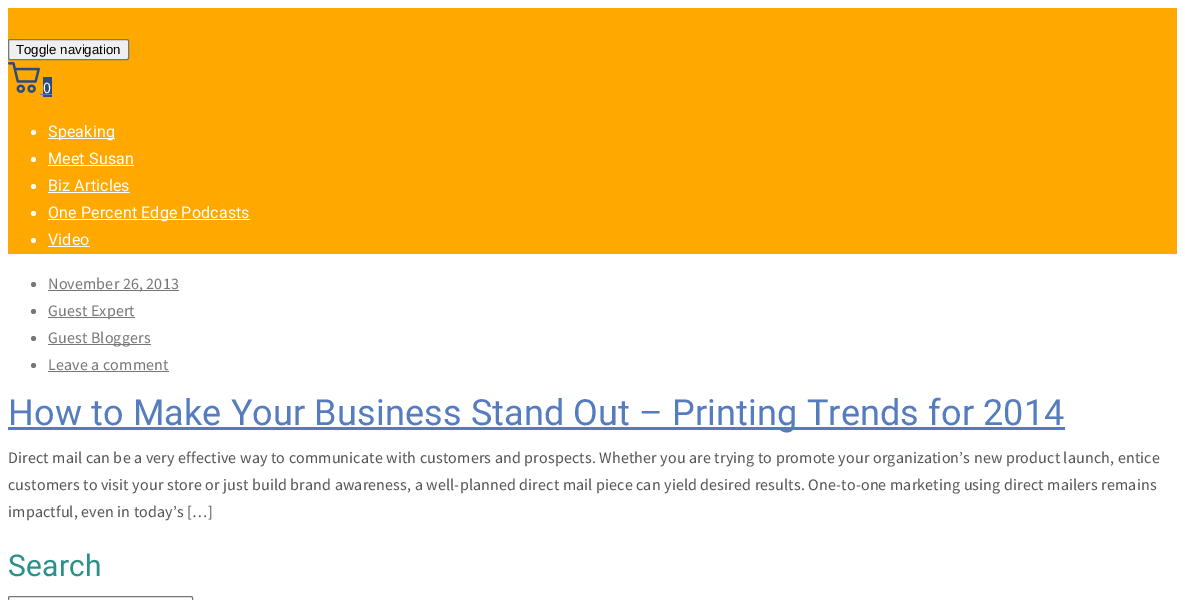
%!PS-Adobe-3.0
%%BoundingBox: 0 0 1185 600
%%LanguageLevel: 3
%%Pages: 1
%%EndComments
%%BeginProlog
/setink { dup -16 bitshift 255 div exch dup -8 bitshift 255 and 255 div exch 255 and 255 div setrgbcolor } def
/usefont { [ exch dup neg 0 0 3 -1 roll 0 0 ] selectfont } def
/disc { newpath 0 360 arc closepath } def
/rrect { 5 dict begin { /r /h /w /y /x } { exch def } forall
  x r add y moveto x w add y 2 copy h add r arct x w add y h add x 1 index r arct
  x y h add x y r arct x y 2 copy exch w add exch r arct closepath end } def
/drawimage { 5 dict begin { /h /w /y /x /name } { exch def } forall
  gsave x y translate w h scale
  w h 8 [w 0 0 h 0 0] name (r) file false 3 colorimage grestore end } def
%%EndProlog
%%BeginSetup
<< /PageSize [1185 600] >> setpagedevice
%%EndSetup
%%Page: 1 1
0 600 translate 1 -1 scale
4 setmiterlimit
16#FFFFFF setink
0 0 1185 600 rectfill
16#FFA800 setink
8 8 1169 246 rectfill
16#EFEFEF setink
8.5 39.5 120 20 1.5 rrect gsave fill grestore
16#767676 setink
stroke
/LiberationSans-Regular 13.25 usefont
16#000000 setink
16 54 moveto (Toggle navigation) show
(img1.raw) 8 62 32 31 drawimage
16#2B4B80 setink
43 77 9 20 rectfill
/SourceSansPro-Regular 16 usefont
16#FFFFFF setink
43 93 moveto 0.16 0 (0) ashow
16#557CBF setink
40 94 3 1 rectfill
43 94 9 1 rectfill
16#FFFFFF setink
33.5 132.5 2.5 disc fill
48 138 67 1 rectfill
/Roboto-Regular 16 usefont
48 137 moveto 0.16 0 (Speaking) ashow
33.5 159.5 2.5 disc fill
48 164 moveto 0.16 0 (Meet Susan) ashow
48 165 86 1 rectfill
33.5 186.5 2.5 disc fill
48 191 moveto 0.16 0 (Biz Articles) ashow
48 192 82 1 rectfill
33.5 213.5 2.5 disc fill
48 219 202 1 rectfill
48 218 moveto 0.16 0 (One Percent Edge Podcasts) ashow
33.5 240.5 2.5 disc fill
48 245 moveto 0.16 0 (Video) ashow
48 246 42 1 rectfill
16#777777 setink
33.5 284.5 2.5 disc fill
48 290 131 1 rectfill
/SourceSansPro-Regular 16 usefont
48 289 moveto 0.16 0 (November 26, 2013) ashow
33.5 311.5 2.5 disc fill
48 317 87 1 rectfill
48 316 moveto 0.16 0 (Guest Expert) ashow
33.5 338.5 2.5 disc fill
48 344 103 1 rectfill
48 343 moveto 0.16 0 (Guest Bloggers) ashow
33.5 365.5 2.5 disc fill
48 370 moveto 0.16 0 (Leave a comment) ashow
48 371 121 1 rectfill
16#557CBF setink
8 427 1057 3 rectfill
/Roboto-Regular 36 usefont
8 425 moveto 0.16 0 (How to Make Your Business Stand Out – Printing Trends for 2014) ashow
/SourceSansPro-Regular 16 usefont
16#555555 setink
8 463 moveto 0.16 0 (Direct mail can be a very effective way to communicate with customers and prospects. Whether you are trying to promote your organization’s new product launch, entice) ashow
8 490 moveto 0.16 0 (customers to visit your store or just build brand awareness, a well-planned direct mail piece can yield desired results. One-to-one marketing using direct mailers remains) ashow
8 517 moveto 0.16 0 (impactful, even in today’s […]) ashow
/Roboto-Regular 30 usefont
16#2B9088 setink
8 576 moveto 0.16 0 (Search) ashow
16#767676 setink
8.5 596.5 184 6 1.5 rrect stroke
showpage
%%EOF
